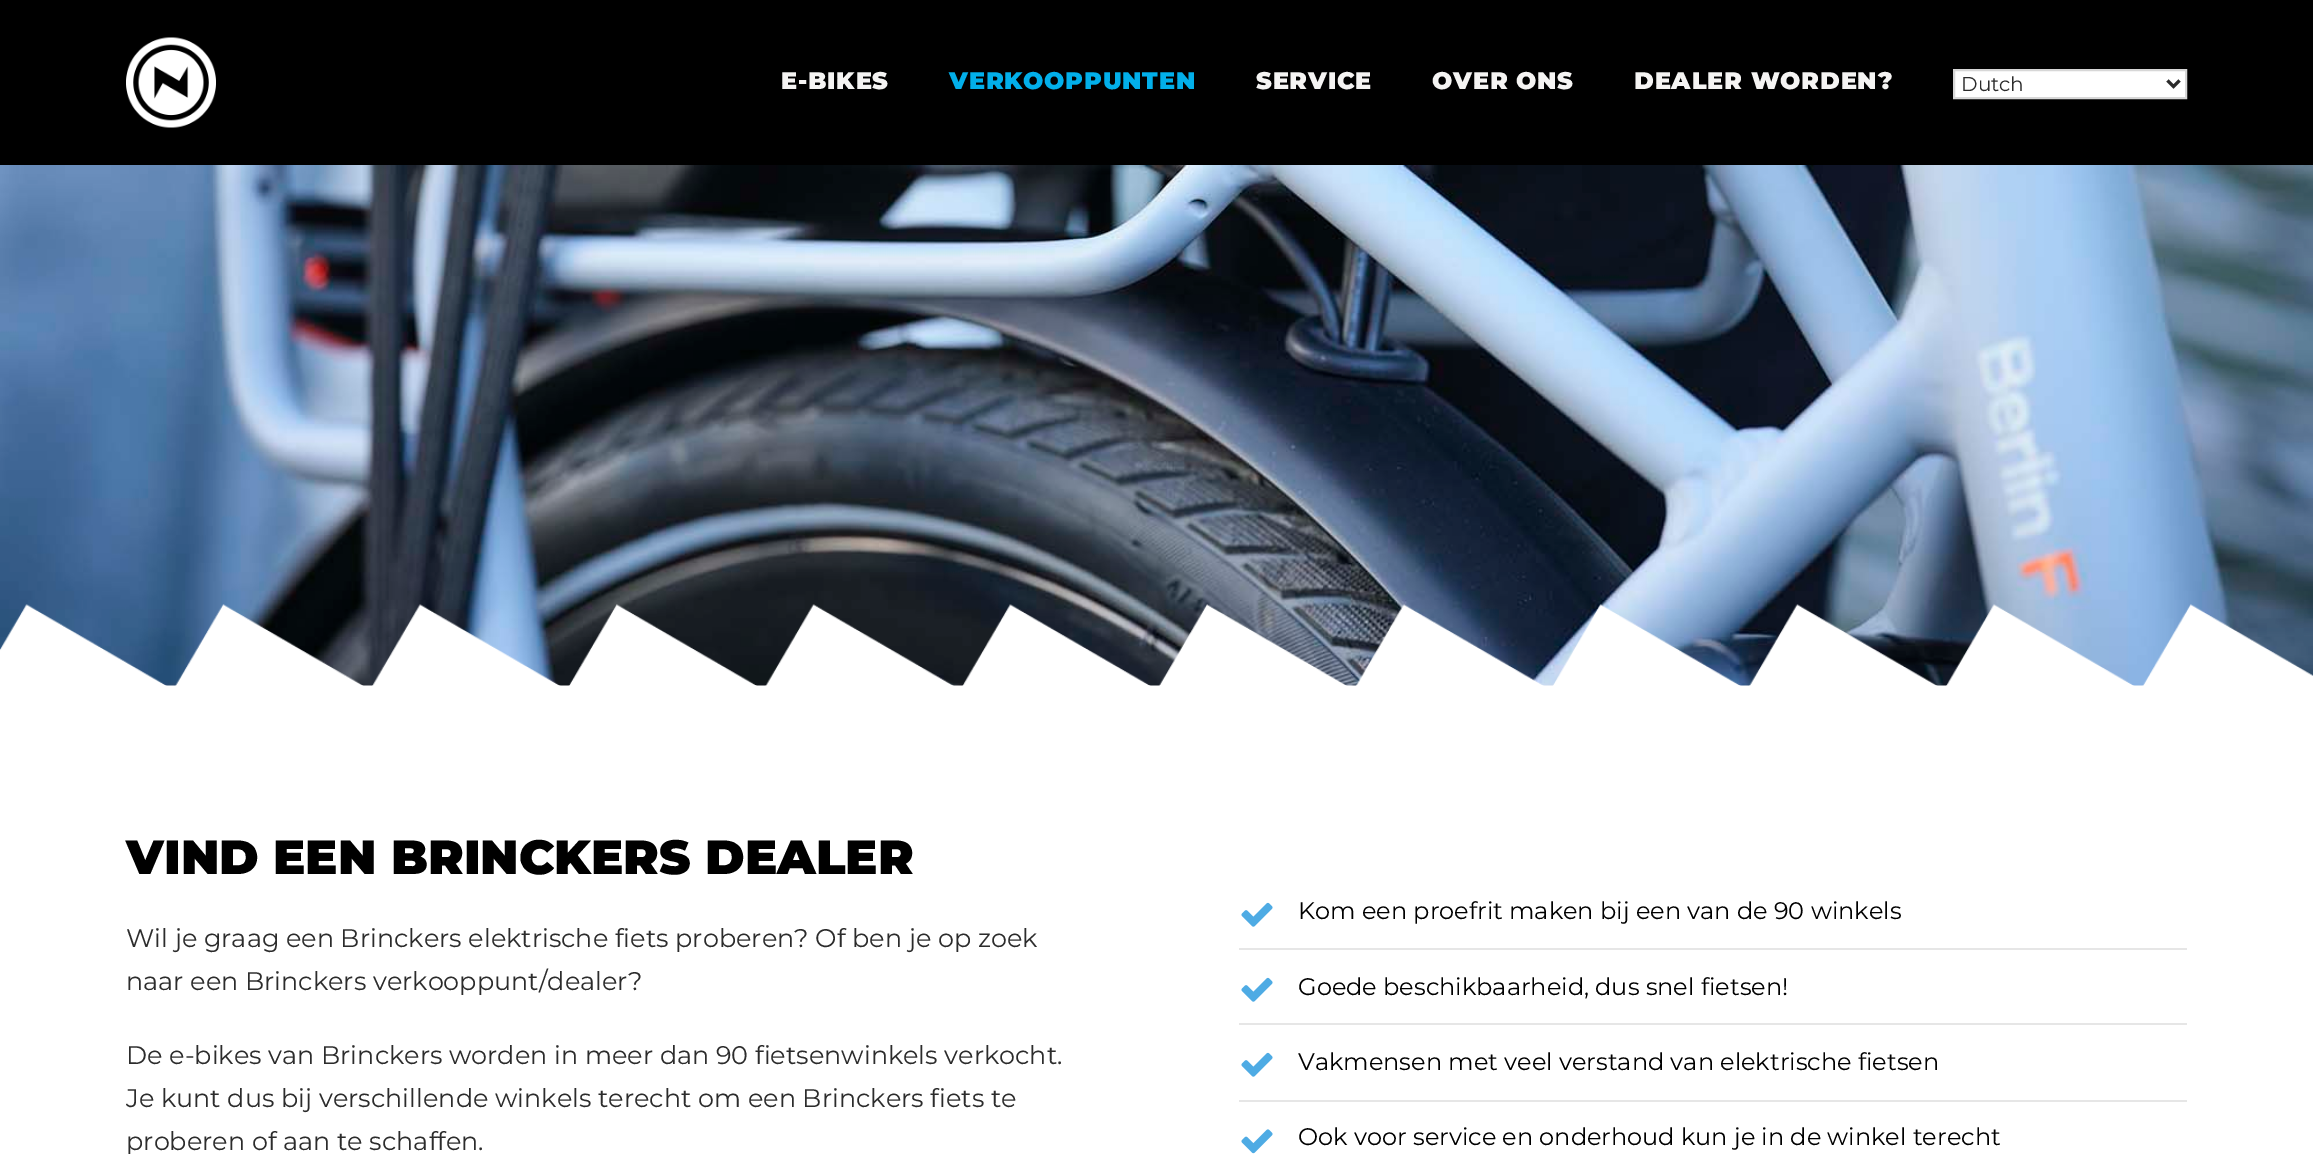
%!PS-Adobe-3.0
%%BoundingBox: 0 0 2313 1154
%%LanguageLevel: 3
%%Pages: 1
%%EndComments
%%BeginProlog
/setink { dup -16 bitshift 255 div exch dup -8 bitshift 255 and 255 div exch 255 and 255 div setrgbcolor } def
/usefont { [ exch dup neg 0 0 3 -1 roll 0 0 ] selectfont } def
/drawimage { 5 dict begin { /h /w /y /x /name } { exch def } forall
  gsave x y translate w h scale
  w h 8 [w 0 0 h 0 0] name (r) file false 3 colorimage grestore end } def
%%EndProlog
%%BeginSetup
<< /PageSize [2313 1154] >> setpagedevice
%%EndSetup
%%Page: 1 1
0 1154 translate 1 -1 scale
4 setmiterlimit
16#FFFFFF setink
0 0 2313 1154 rectfill
16#000000 setink
0 0 2313 165 rectfill
(img1.raw) 126 37 90 91 drawimage
/Montserrat-Black 24 usefont
16#F5F4F3 setink
781 89 moveto 0.75 0 (E-BIKES) ashow
16#02AFEA setink
949 89 moveto 0.75 0 (VERKOOPPUNTEN) ashow
16#F5F4F3 setink
1256 89 moveto 0.75 0 (SERVICE) ashow
1432 89 moveto 0.75 0 (OVER ONS) ashow
1634 89 moveto 0.75 0 (DEALER WORDEN?) ashow
16#FFFFFF setink
1954 70 moveto 2186 70 lineto 2186 98 lineto 1954 98 lineto closepath gsave fill grestore
16#D7D7D7 setink
2 setlinewidth
stroke
16#2B2B2B setink
3 setlinewidth
2167.5 80.5 moveto 2173.5 86.5 lineto 2179.5 80.5 lineto stroke
/Montserrat-Regular 20 usefont
16#2C2C2C setink
1961 91 moveto (Dutch) show
(img2.raw) 0 165 2313 521 drawimage
(img3.raw) 0 604 2313 82 drawimage
/Montserrat-Black 48 usefont
16#000000 setink
126 874 moveto (VIND EEN BRINCKERS DEALER) show
/Montserrat-Regular 25.5 usefont
16#2C2C2C setink
[
    [(Wil je graag een Brinckers elektrische fiets proberen? Of ben je op zoek) 126 947]
    [(naar een Brinckers verkooppunt/dealer?) 126 990]
    [(De e-bikes van Brinckers worden in meer dan 90 fietsenwinkels verkocht.) 126 1064]
    [(Je kunt dus bij verschillende winkels terecht om een Brinckers fiets te) 126 1107]
    [(proberen of aan te schaffen.) 126 1150]
] { aload pop moveto show } forall
16#E6E6E6 setink
1239 948 948 2 rectfill
(img4.raw) 1241 902 32 25 drawimage
/Montserrat-Regular 24 usefont
16#000000 setink
1298 919 moveto (Kom een proefrit maken bij een van de 90 winkels) show
16#E6E6E6 setink
1239 1023 948 2 rectfill
(img4.raw) 1241 977 32 25 drawimage
16#000000 setink
1298 995 moveto (Goede beschikbaarheid, dus snel fietsen!) show
16#E6E6E6 setink
1239 1100 948 2 rectfill
(img4.raw) 1241 1052 32 25 drawimage
16#000000 setink
1298 1070 moveto (Vakmensen met veel verstand van elektrische fietsen) show
(img5.raw) 1241 1129 32 25 drawimage
1298 1145 moveto (Ook voor service en onderhoud kun je in de winkel terecht) show
showpage
%%EOF
